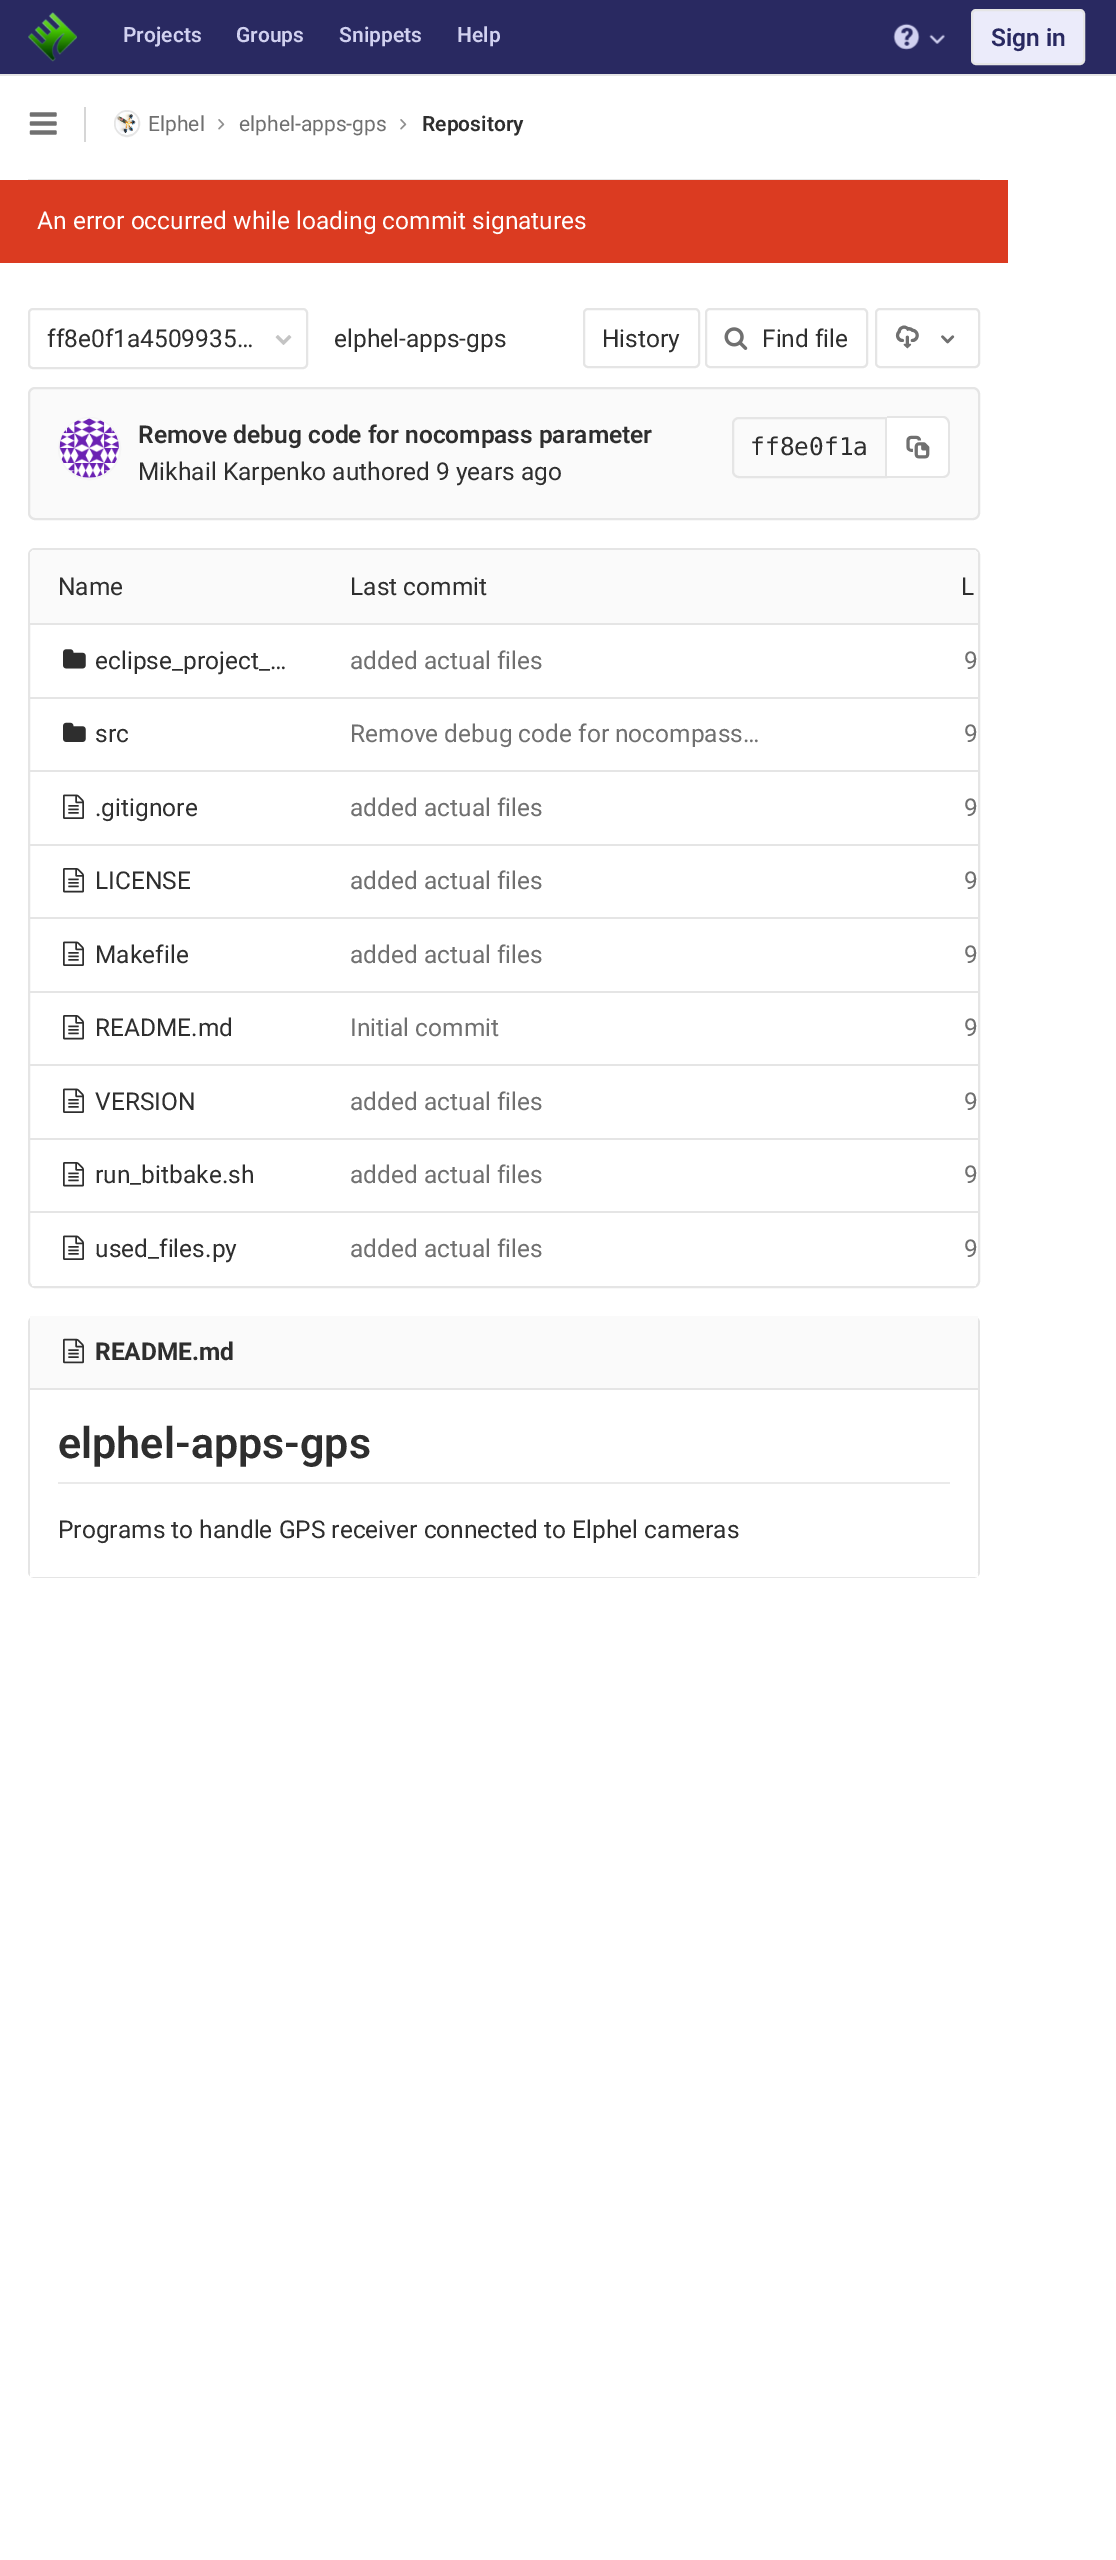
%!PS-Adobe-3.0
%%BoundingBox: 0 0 1116 2560
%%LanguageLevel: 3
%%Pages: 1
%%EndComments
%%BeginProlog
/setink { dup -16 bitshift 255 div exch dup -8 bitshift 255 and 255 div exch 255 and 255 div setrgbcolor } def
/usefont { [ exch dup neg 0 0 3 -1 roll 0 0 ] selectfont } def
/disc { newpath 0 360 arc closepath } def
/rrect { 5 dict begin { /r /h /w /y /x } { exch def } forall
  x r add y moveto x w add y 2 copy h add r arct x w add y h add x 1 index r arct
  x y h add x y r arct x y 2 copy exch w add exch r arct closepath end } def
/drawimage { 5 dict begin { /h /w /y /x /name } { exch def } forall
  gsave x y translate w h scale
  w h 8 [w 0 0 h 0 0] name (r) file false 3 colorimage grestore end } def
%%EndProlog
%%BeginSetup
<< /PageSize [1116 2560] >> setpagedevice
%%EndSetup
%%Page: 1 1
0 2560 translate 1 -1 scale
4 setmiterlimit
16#FFFFFF setink
0 0 1116 2560 rectfill
16#292961 setink
0 0 1116 74 rectfill
16#E5E5E5 setink
0 74 1116 2 rectfill
(img1.raw) 28 12 49 50 drawimage
/Roboto-SemiBold 21 usefont
16#D1D1F0 setink
[
    [(Projects) 123 42]
    [(Groups) 236 42]
    [(Snippets) 339 42]
    [(Help) 457 42]
] { aload pop moveto show } forall
(img2.raw) 893 23 27 27 drawimage
(img3.raw) 929 34 16 10 drawimage
16#EBEBFA setink
972 10 112 54 4 rrect gsave fill grestore
16#E5E5E5 setink
2 setlinewidth
stroke
/Roboto-SemiBold 24.5 usefont
16#292961 setink
991 46 moveto (Sign in) show
16#E5E5E5 setink
28 179 952 1 rectfill
(img4.raw) 29 112 28 23 drawimage
16#D6D6D6 setink
84 107 2 35 rectfill
16#E5E5E5 setink
115 111 24 25 12 rrect stroke
(img5.raw) 115 112 23 22 drawimage
/Roboto-Regular 21 usefont
16#707070 setink
148 131 moveto (Elphel) show
(img6.raw) 218 119 7 11 drawimage
239 131 moveto (elphel-apps-gps) show
(img6.raw) 400 119 7 11 drawimage
/Roboto-SemiBold 21 usefont
16#2E2E2E setink
422 131 moveto (Repository) show
16#DB3B21 setink
0 180 1008 83 rectfill
/Roboto-Regular 24.5 usefont
16#FFFFFF setink
37 229 moveto (An error occurred while loading commit signatures) show
16#E5E5E5 setink
29 309 278 59 4 rrect stroke
16#2E2E2E setink
47 347 moveto (ff8e0f1a4509935…) show
(img7.raw) 275 335 17 10 drawimage
334 347 moveto (elphel-apps-gps) show
16#E5E5E5 setink
584 309 115 58 4 rrect stroke
16#2E2E2E setink
602 347 moveto (History) show
16#E5E5E5 setink
706 309 161 58 4 rrect stroke
(img8.raw) 724 327 24 23 drawimage
16#2E2E2E setink
762 347 moveto (Find file) show
16#E5E5E5 setink
876 309 103 58 4 rrect stroke
(img9.raw) 895 325 24 24 drawimage
(img10.raw) 941 335 14 9 drawimage
16#FAFAFA setink
29 388 950 131 6 rrect gsave fill grestore
16#E5E5E5 setink
stroke
16#FDFDFD setink
89.5 448.5 30.5 disc gsave fill grestore
16#F5F5F5 setink
stroke
(img11.raw) 59 418 60 60 drawimage
/Roboto-SemiBold 24.5 usefont
16#2E2E2E setink
138 443 moveto (Remove debug code for nocompass parameter) show
/Roboto-Regular 24.5 usefont
138 480 moveto (Mikhail Karpenko authored 9 years ago) show
16#E5E5E5 setink
739 418 moveto 886 418 lineto 886 477 lineto 739 477 lineto 735.5 477 733 474.5 733 471 curveto 733 424 lineto 733 420.5 735.5 418 739 418 curveto closepath stroke
/DejaVuSansMono-Regular 24.5 usefont
16#2E2E2E setink
750 455 moveto (ff8e0f1a) show
16#FFFFFF setink
887 417 moveto 943 417 lineto 947 417 950 420 950 424 curveto 950 471 lineto 950 475 947 478 943 478 curveto 887 478 lineto closepath fill
16#E5E5E5 setink
887 416 moveto 943 416 lineto 947 416 950 420 950 424 curveto 950 471 lineto 950 475 947 478 943 478 curveto 887 478 lineto closepath 887 418 moveto 943 418 lineto 946 418 948 421 948 424 curveto 948 471 lineto 948 474 946 476 943 476 curveto 887 476 lineto closepath eofill
(img12.raw) 906 435 24 24 drawimage
29 549 950 738 6 rrect stroke
gsave
30 550 948 736 5 rrect clip newpath
[
    [30 551 292 72 16#FAFAFA]
    [882 551 96 72 16#FAFAFA]
    [880 550 98 2 16#FAFAFA]
] { aload pop setink rectfill } forall
grestore
16#FAFAFA setink
320 550 562 2 rectfill
gsave
30 550 948 736 5 rrect clip newpath
30 550 292 2 rectfill
grestore
/Roboto-Regular 24.5 usefont
16#2E2E2E setink
58 595 moveto (Name) show
16#FAFAFA setink
322 552 560 71 rectfill
16#2E2E2E setink
350 595 moveto (Last commit) show
961 595 moveto (L) show
(img13.raw) 63 649 23 20 drawimage
95 669 moveto (eclipse_project_…) show
16#707070 setink
350 669 moveto (added actual files) show
16#E5E5E5 setink
30 623 948 2 rectfill
16#707070 setink
964 669 moveto (9) show
(img14.raw) 63 722 23 20 drawimage
16#2E2E2E setink
95 742 moveto (src) show
16#707070 setink
350 742 moveto (Remove debug code for nocompass…) show
16#E5E5E5 setink
30 697 948 2 rectfill
16#707070 setink
964 742 moveto (9) show
(img15.raw) 63 794 21 25 drawimage
16#2E2E2E setink
95 816 moveto (.gitignore) show
16#707070 setink
350 816 moveto (added actual files) show
16#E5E5E5 setink
30 770 948 2 rectfill
16#707070 setink
964 816 moveto (9) show
(img16.raw) 63 868 21 25 drawimage
16#2E2E2E setink
95 889 moveto (LICENSE) show
16#707070 setink
350 889 moveto (added actual files) show
16#E5E5E5 setink
30 844 948 2 rectfill
16#707070 setink
964 889 moveto (9) show
(img15.raw) 63 941 21 25 drawimage
16#2E2E2E setink
95 963 moveto (Makefile) show
16#707070 setink
350 963 moveto (added actual files) show
16#E5E5E5 setink
30 917 948 2 rectfill
16#707070 setink
964 963 moveto (9) show
(img16.raw) 63 1015 21 25 drawimage
16#2E2E2E setink
95 1036 moveto (README.md) show
16#707070 setink
350 1036 moveto (Initial commit) show
16#E5E5E5 setink
30 991 948 2 rectfill
16#707070 setink
964 1036 moveto (9) show
(img15.raw) 63 1088 21 25 drawimage
16#2E2E2E setink
95 1110 moveto (VERSION) show
16#707070 setink
350 1110 moveto (added actual files) show
16#E5E5E5 setink
30 1064 948 2 rectfill
16#707070 setink
964 1110 moveto (9) show
(img16.raw) 63 1162 21 25 drawimage
16#2E2E2E setink
95 1183 moveto (run_bitbake.sh) show
16#707070 setink
350 1183 moveto (added actual files) show
16#E5E5E5 setink
30 1138 948 2 rectfill
16#707070 setink
964 1183 moveto (9) show
gsave
30 550 948 736 5 rrect clip newpath
16#FFFFFF setink
30 1285 948 1 rectfill
grestore
(img15.raw) 63 1235 21 25 drawimage
16#2E2E2E setink
95 1257 moveto (used_files.py) show
16#707070 setink
350 1257 moveto (added actual files) show
16#E5E5E5 setink
30 1211 948 2 rectfill
16#707070 setink
964 1257 moveto (9) show
16#E5E5E5 setink
35 1316 moveto 973 1316 lineto 977 1316 980 1319 980 1323 curveto 980 1572 lineto 980 1575 977 1578 973 1578 curveto 35 1578 lineto 31 1578 28 1575 28 1572 curveto 28 1323 lineto 28 1319 31 1316 35 1316 curveto closepath 35 1316 moveto 973 1316 lineto 976 1316 978 1319 978 1323 curveto 978 1572 lineto 978 1574 976 1577 973 1577 curveto 35 1577 lineto 32 1577 30 1574 30 1572 curveto 30 1323 lineto 30 1319 32 1316 35 1316 curveto closepath eofill
16#FAFAFA setink
30 1316 948 72 rectfill
16#E5E5E5 setink
30 1388 948 2 rectfill
(img17.raw) 63 1338 21 26 drawimage
/Roboto-Bold 24.5 usefont
16#2E2E2E setink
95 1360 moveto (README.md) show
16#FFFFFF setink
30 1573 948 4 rectfill
16#EAEAEA setink
58 1482 892 2 rectfill
/Roboto-SemiBold 43 usefont
16#2E2E2E setink
58 1458 moveto (elphel-apps-gps) show
/Roboto-Regular 24.5 usefont
58 1538 moveto (Programs to handle GPS receiver connected to Elphel cameras) show
showpage
%%EOF
